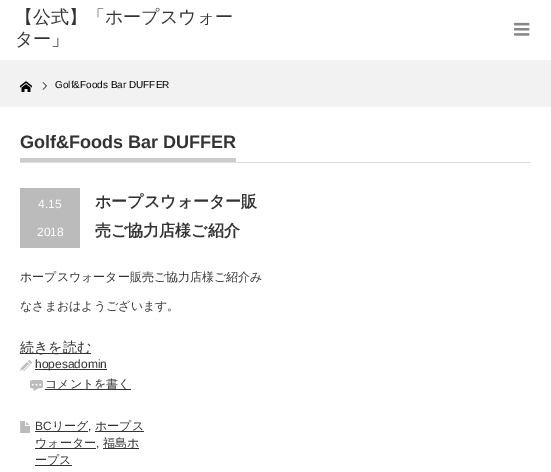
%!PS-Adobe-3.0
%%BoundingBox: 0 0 551 472
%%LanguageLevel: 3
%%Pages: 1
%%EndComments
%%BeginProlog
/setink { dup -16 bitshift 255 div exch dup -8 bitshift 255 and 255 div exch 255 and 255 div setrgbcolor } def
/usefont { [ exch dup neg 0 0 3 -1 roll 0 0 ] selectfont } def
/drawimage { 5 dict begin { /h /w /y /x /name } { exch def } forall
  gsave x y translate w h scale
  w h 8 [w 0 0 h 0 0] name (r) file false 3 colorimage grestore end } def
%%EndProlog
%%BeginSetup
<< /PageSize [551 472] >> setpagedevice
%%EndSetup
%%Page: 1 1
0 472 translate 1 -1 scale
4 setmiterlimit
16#FFFFFF setink
0 0 551 472 rectfill
/WenQuanYiZenHei-Medium 18 usefont
16#333333 setink
15 23 moveto (【公式】「ホープスウォー) show
15 45 moveto (ター」) show
(img1.raw) 514 22 16 14 drawimage
16#F2F2F2 setink
0 60 551 47 rectfill
(img2.raw) 20 81 12 11 drawimage
(img3.raw) 42 82 5 8 drawimage
/LiberationSans-Regular 10 usefont
16#000000 setink
55 88 moveto (Golf&Foods Bar DUFFER) show
16#DDDDDD setink
20 162 511 1 rectfill
16#CCCCCC setink
20 158 216 4 rectfill
/LiberationSans-Bold 18 usefont
16#333333 setink
20 148 moveto (Golf&Foods Bar DUFFER) show
16#BBBBBB setink
20 188 60 60 rectfill
/LiberationSans-Regular 12 usefont
16#FFFFFF setink
38 208 moveto (4.15) show
37 236 moveto (2018) show
/WenQuanYiZenHei-Bold 16 usefont
16#333333 setink
95 207 moveto (ホープスウォーター販) show
95 236 moveto (売ご協力店様ご紹介) show
/WenQuanYiZenHei-Medium 12 usefont
20 281 moveto (ホープスウォーター販売ご協力店様ご紹介み) show
20 310 moveto (なさまおはようございます。) show
20 353 71 1 rectfill
/WenQuanYiZenHei-Medium 14 usefont
20 352 moveto (続きを読む) show
(img4.raw) 20 360 12 11 drawimage
35 369 72 1 rectfill
/LiberationSans-Regular 12 usefont
35 368 moveto (hopesadomin) show
(img5.raw) 30 380 13 11 drawimage
45 389 86 1 rectfill
/WenQuanYiZenHei-Medium 12 usefont
45 388 moveto (コメントを書く) show
(img6.raw) 20 421 10 12 drawimage
/LiberationSans-Regular 12 usefont
35 430 moveto (BC) show
35 431 53 1 rectfill
/WenQuanYiZenHei-Medium 12 usefont
52 430 moveto (リーグ) show
/LiberationSans-Regular 12 usefont
88 430 moveto (,) show
95 431 49 1 rectfill
/WenQuanYiZenHei-Medium 12 usefont
95 430 moveto (ホープス) show
35 448 61 1 rectfill
35 447 moveto (ウォーター) show
/LiberationSans-Regular 12 usefont
96 447 moveto (,) show
103 448 36 1 rectfill
/WenQuanYiZenHei-Medium 12 usefont
103 447 moveto (福島ホ) show
35 465 37 1 rectfill
35 464 moveto (ープス) show
showpage
%%EOF
